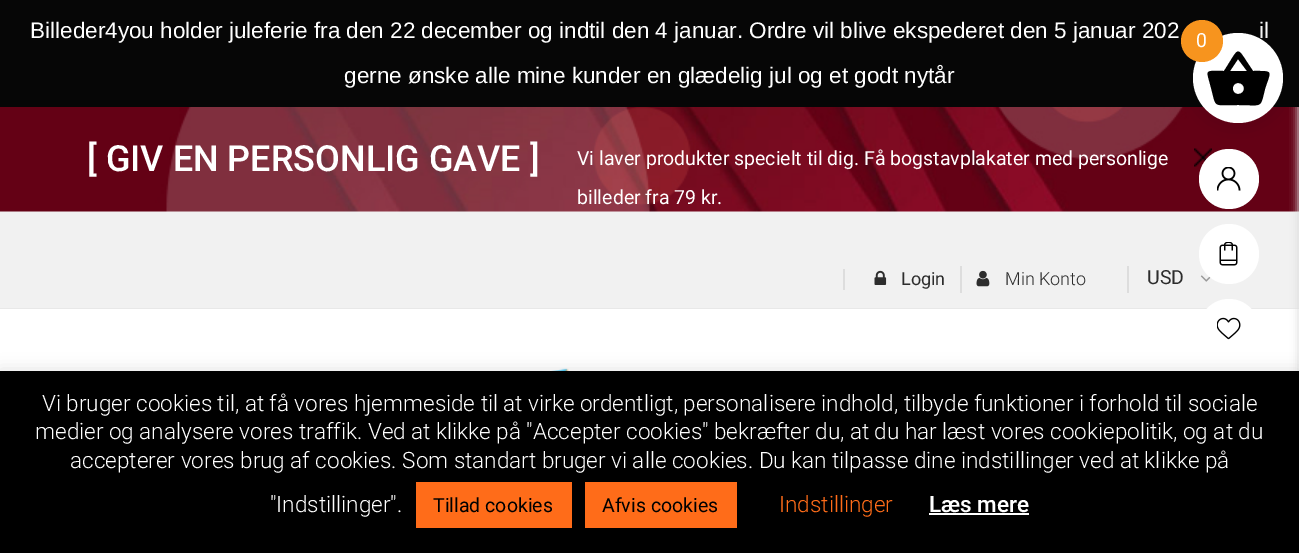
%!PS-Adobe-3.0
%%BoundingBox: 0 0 1299 553
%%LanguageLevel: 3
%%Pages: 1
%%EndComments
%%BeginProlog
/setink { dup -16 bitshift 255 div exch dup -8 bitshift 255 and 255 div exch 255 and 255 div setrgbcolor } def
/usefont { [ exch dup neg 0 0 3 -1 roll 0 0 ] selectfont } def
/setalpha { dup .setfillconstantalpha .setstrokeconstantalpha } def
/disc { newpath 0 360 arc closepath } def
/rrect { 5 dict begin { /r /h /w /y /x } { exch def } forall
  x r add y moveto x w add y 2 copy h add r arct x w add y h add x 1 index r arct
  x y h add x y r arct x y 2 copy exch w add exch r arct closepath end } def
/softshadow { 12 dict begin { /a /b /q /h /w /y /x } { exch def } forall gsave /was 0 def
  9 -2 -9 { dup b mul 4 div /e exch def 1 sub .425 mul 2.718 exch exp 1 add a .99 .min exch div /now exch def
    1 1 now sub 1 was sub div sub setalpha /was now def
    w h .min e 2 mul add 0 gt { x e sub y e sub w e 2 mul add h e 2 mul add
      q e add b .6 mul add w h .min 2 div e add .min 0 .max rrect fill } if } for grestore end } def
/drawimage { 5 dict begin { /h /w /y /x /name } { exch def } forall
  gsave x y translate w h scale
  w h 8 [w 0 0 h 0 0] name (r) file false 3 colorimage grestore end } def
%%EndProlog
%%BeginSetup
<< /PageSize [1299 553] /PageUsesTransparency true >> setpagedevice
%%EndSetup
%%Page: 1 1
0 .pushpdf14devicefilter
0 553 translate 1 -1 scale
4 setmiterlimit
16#F1F1F1 setink
0 0 1299 553 rectfill
(img4.raw) 0 107 1299 105 drawimage
(img5.raw) 1194 148 18 19 drawimage
16#FFFFFF setink
1229 179 30 disc fill
(img1.raw) 1217 167 24 24 drawimage
(img8.raw) 1200 275 11 7 drawimage
1229 254 30 disc fill
(img2.raw) 1219 242 19 24 drawimage
16#E8E8E8 setink
0 308 1299 1 rectfill
16#FFFFFF setink
0 309 1299 62 rectfill
1229 329 30 disc fill
(img3.raw) 1217 317 24 23 drawimage
16#DDDDDD setink
1298 3 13 548 0 4 1 softshadow
16#060606 setink
0 0 1299 107 rectfill
/LiberationSans-Regular 22.5 usefont
16#FFFFFF setink
[
    [(Billeder4you holder juleferie fra den 22 december og indtil den 4 januar. Ordre vil blive ekspederet den 5 januar 202) 30 38]
    [(il) 1259 38]
    [(gerne ønske alle mine kunder en glædelig jul og et godt nytår) 344 83]
] { aload pop moveto show } forall
16#000000 setink
1190 30 96 96 48 11 0.1 softshadow
16#FFFFFF setink
1238 78 45 disc fill
16#000000 setink
1238 94 moveto 1246 94 1246 83 1238 83 curveto 1231 83 1231 94 1238 94 curveto closepath 1230 71 moveto 1247 71 lineto 1238 59 lineto closepath 1253 71 moveto 1274 71 1271 70 1265 89 curveto 1260 109 1263 105 1238 105 curveto 1211 105 1217 109 1210 84 curveto 1206 69 1205 71 1224 71 curveto 1241 45 1235 45 1253 71 curveto closepath fill
16#F7941E setink
1202 41 21 disc fill
/Roboto-Regular 19.5 usefont
16#FFFFFF setink
1196 47 moveto (0) show
/Roboto-Medium 36 usefont
87 171 moveto ([ GIV EN PERSONLIG GAVE ]) show
/Roboto-Regular 19.5 usefont
577 165 moveto (Vi laver produkter specielt til dig. Få bogstavplakater med personlige) show
577 204 moveto (billeder fra 79 kr.) show
16#DDDDDD setink
843 269 2 21 rectfill
(img6.raw) 874 270 13 15 drawimage
/Roboto-Regular 18 usefont
16#2D2D2D setink
901 285 moveto (Login) show
16#DDDDDD setink
960 266 2 27 rectfill
(img7.raw) 976 270 14 17 drawimage
/Roboto-Light 18 usefont
16#2D2D2D setink
1005 285 moveto (Min Konto) show
16#DDDDDD setink
1127 266 2 27 rectfill
/Roboto-Regular 19.5 usefont
16#2D2D2D setink
1147 284 moveto (USD) show
(img9.raw) 551 368 18 3 drawimage
16#ACABAB setink
0 369 1299 183 0 7.5 0.3 softshadow
16#000000 setink
0 371 1299 182 rectfill
/Roboto-Light 22.5 usefont
16#FFFFFF setink
[
    [(Vi bruger cookies til, at få vores hjemmeside til at virke ordentligt, personalisere indhold, tilbyde funktioner i forhold til sociale) 42 411]
    [(medier og analysere vores traffik. Ved at klikke på "Accepter cookies" bekræfter du, at du har læst vores cookiepolitik, og at du) 35 439]
    [(accepterer vores brug af cookies. Som standart bruger vi alle cookies. Du kan tilpasse dine indstillinger ved at klikke på) 70 468]
    [("Indstillinger".) 270 512]
] { aload pop moveto show } forall
16#FF6C19 setink
416 482 156 46 rectfill
/Roboto-Regular 19.5 usefont
16#000000 setink
433 512 moveto (Tillad cookies) show
16#FF6C19 setink
585 482 152 46 rectfill
16#000000 setink
602 512 moveto (Afvis cookies) show
/Roboto-Light 22.5 usefont
16#FF6C19 setink
779 512 moveto (Indstillinger) show
/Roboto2-Medium 22.5 usefont
16#FFFFFF setink
929 512 moveto (Læs mere) show
929 513 100 2 rectfill
.poppdf14devicefilter showpage
%%EOF
